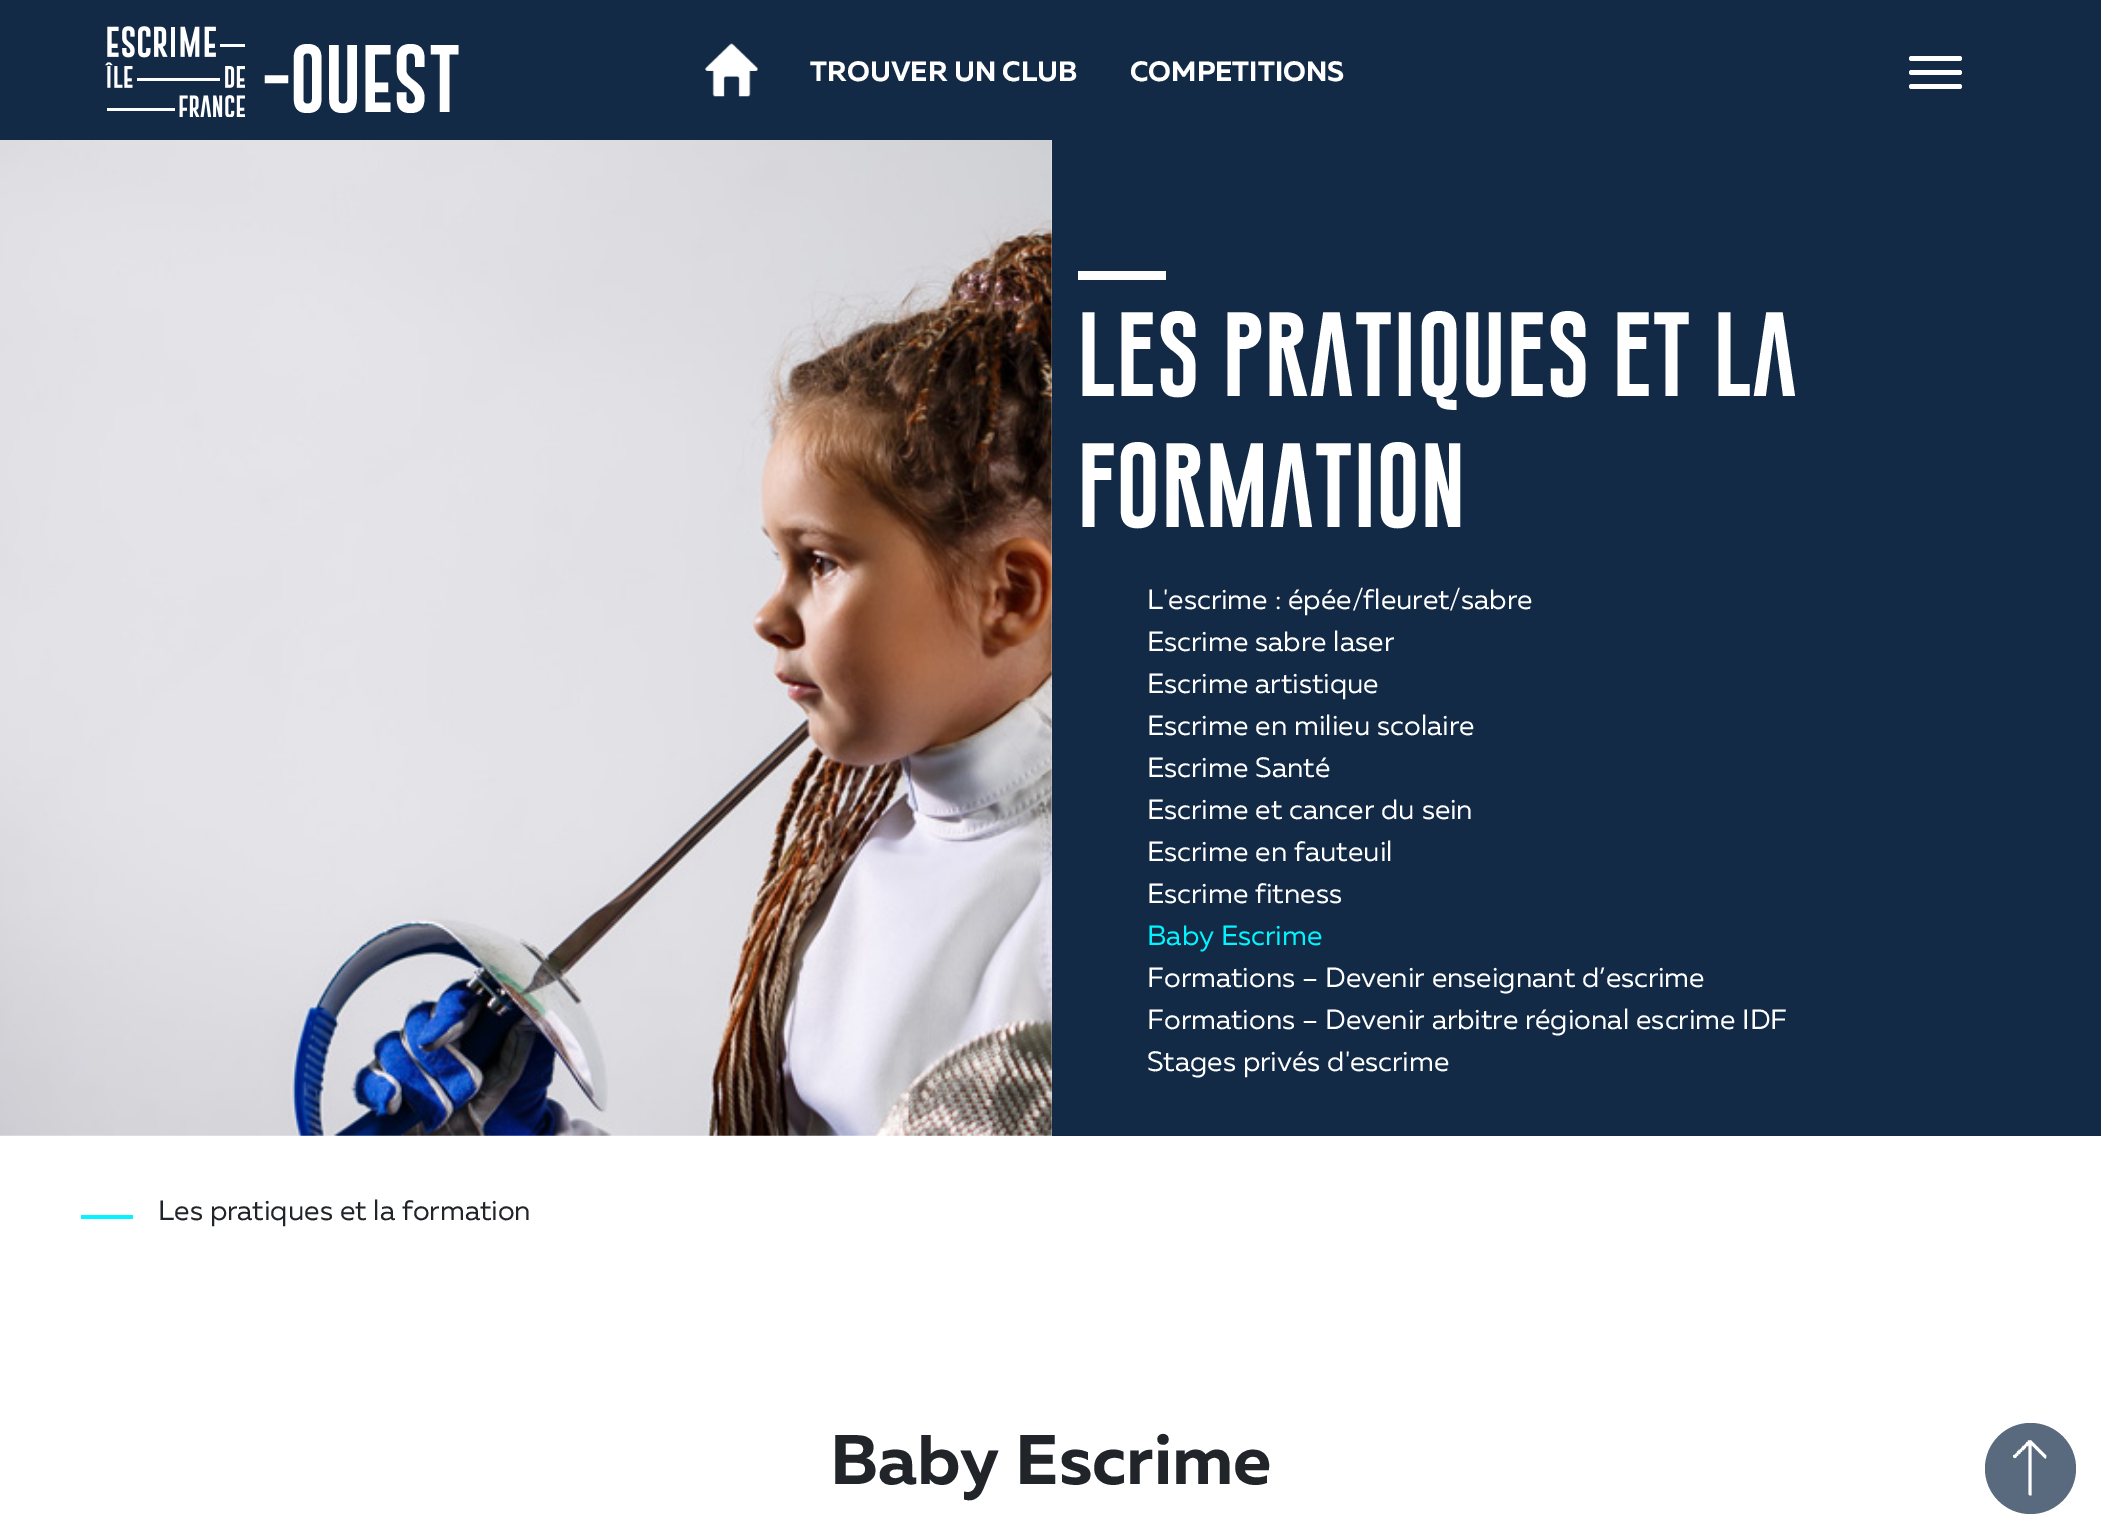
%!PS-Adobe-3.0
%%BoundingBox: 0 0 2101 1540
%%LanguageLevel: 3
%%Pages: 1
%%EndComments
%%BeginProlog
/setink { dup -16 bitshift 255 div exch dup -8 bitshift 255 and 255 div exch 255 and 255 div setrgbcolor } def
/usefont { [ exch dup neg 0 0 3 -1 roll 0 0 ] selectfont } def
/disc { newpath 0 360 arc closepath } def
/rrect { 5 dict begin { /r /h /w /y /x } { exch def } forall
  x r add y moveto x w add y 2 copy h add r arct x w add y h add x 1 index r arct
  x y h add x y r arct x y 2 copy exch w add exch r arct closepath end } def
/drawimage { 5 dict begin { /h /w /y /x /name } { exch def } forall
  gsave x y translate w h scale
  w h 8 [w 0 0 h 0 0] name (r) file false 3 colorimage grestore end } def
%%EndProlog
%%BeginSetup
<< /PageSize [2101 1540] >> setpagedevice
%%EndSetup
%%Page: 1 1
0 1540 translate 1 -1 scale
4 setmiterlimit
16#FFFFFF setink
0 0 2101 1540 rectfill
16#132A46 setink
0 0 2101 140 rectfill
(img1.raw) 105 26 140 91 drawimage
/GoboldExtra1-Bold 70 usefont
16#FFFFFF setink
263 112 moveto (-OUEST) show
(img2.raw) 705 43 53 54 drawimage
/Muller-Bold 28 usefont
810 81 moveto (TROUVER UN CLUB) show
1130 81 moveto (COMPETITIONS) show
1909 56 53 5 2.5 rrect fill
1909 70 53 5 2.5 rrect fill
1909 84 53 5 2.5 rrect fill
(img3.raw) 0 140 1052 996 drawimage
16#132A46 setink
1052 140 1049 996 rectfill
16#FFFFFF setink
1078 271 88 9 rectfill
/GoboldExtra1-Bold 87.5 usefont
1077 396 moveto (Les pratiques et la) show
1077 527 moveto (formation) show
/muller-Regular 28 usefont
[
    [(L'escrime : épée/fleuret/sabre) 1147 609]
    [(Escrime sabre laser) 1147 651]
    [(Escrime artistique) 1147 693]
    [(Escrime en milieu scolaire) 1147 735]
    [(Escrime Santé) 1147 777]
    [(Escrime et cancer du sein) 1147 819]
    [(Escrime en fauteuil) 1147 861]
    [(Escrime fitness) 1147 903]
] { aload pop moveto show } forall
16#03F4FF setink
1147 945 moveto (Baby Escrime) show
16#FFFFFF setink
[
    [(Formations – Devenir enseignant d’escrime) 1147 987]
    [(Formations – Devenir arbitre régional escrime IDF) 1147 1029]
    [(Stages privés d'escrime) 1147 1071]
] { aload pop moveto show } forall
16#03F4FF setink
81 1215 52 4 rectfill
16#212529 setink
158 1220 moveto (Les pratiques et la formation) show
/Muller-Bold 70 usefont
830 1484 moveto (Baby Escrime) show
16#5A6A7E setink
2030.5 1468.5 45.5 disc fill
(img4.raw) 2013 1440 34 56 drawimage
showpage
%%EOF
